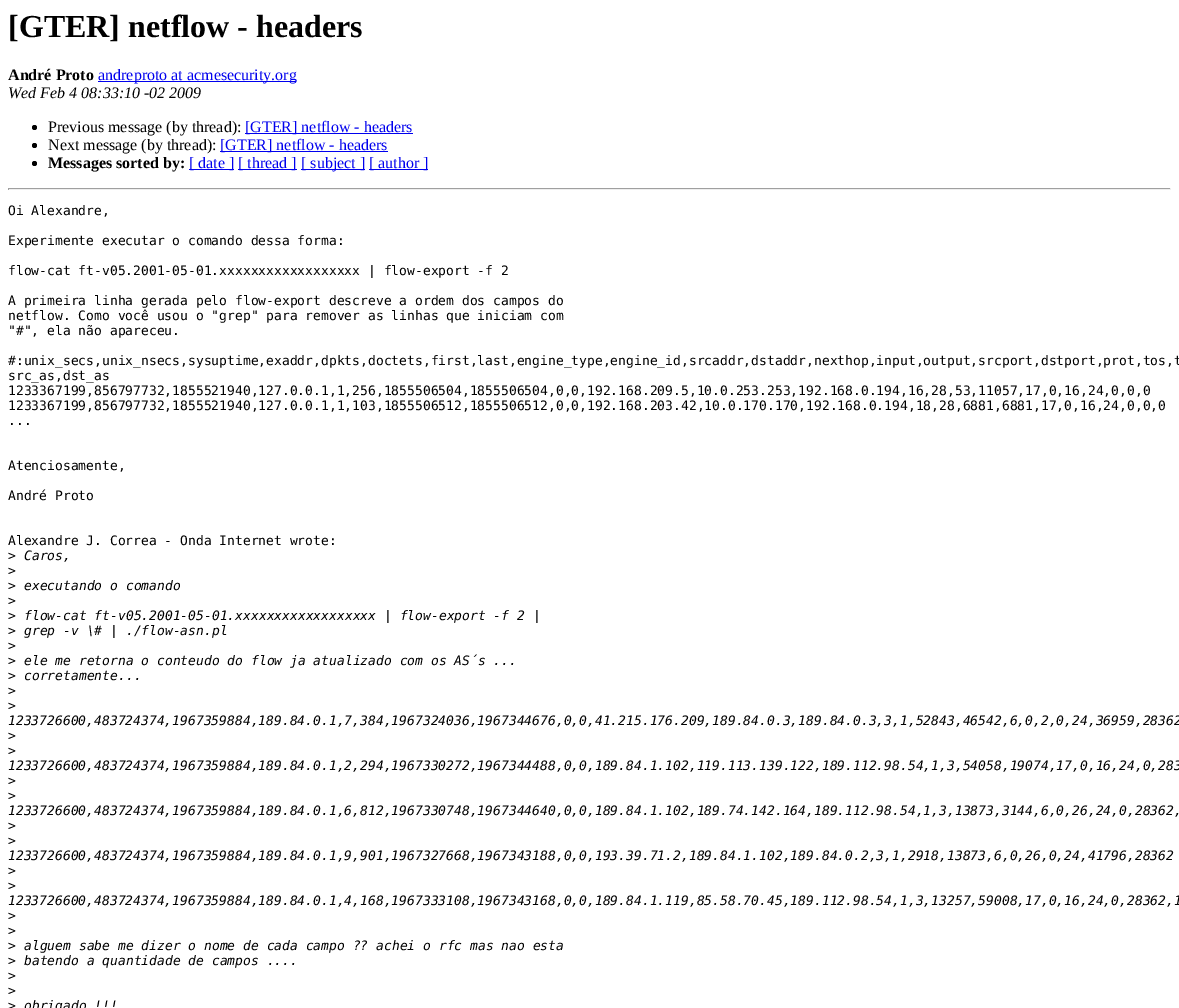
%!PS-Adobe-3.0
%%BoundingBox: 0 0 1179 1008
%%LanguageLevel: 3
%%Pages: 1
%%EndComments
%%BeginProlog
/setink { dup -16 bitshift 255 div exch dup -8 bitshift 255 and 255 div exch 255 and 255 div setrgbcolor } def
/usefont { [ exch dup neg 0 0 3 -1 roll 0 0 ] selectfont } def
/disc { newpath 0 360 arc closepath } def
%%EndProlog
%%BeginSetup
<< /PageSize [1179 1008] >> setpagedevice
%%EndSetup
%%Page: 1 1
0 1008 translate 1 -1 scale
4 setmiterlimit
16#FFFFFF setink
0 0 1179 1008 rectfill
/LiberationSerif-Bold 32 usefont
16#000000 setink
8 37 moveto ([GTER] netflow - headers) show
/LiberationSerif-Bold 16 usefont
8 80 moveto (André Proto) show
16#0000EE setink
98 81 198 1 rectfill
/LiberationSerif-Regular 16 usefont
98 80 moveto (andreproto at acmesecurity.org) show
/LiberationSerif-Italic 16 usefont
16#000000 setink
8 98 moveto (Wed Feb 4 08:33:10 -02 2009) show
34.5 127.5 2.5 disc fill
/LiberationSerif-Regular 16 usefont
48 132 moveto (Previous message \(by thread\):) show
16#0000EE setink
245 133 168 1 rectfill
245 132 moveto ([GTER] netflow - headers) show
16#000000 setink
34.5 145.5 2.5 disc fill
48 150 moveto (Next message \(by thread\):) show
16#0000EE setink
220 151 168 1 rectfill
220 150 moveto ([GTER] netflow - headers) show
16#000000 setink
34.5 163.5 2.5 disc fill
/LiberationSerif-Bold 16 usefont
48 168 moveto (Messages sorted by:) show
16#0000EE setink
189 169 45 1 rectfill
/LiberationSerif-Regular 16 usefont
189 168 moveto ([ date ]) show
238 169 59 1 rectfill
238 168 moveto ([ thread ]) show
301 169 64 1 rectfill
301 168 moveto ([ subject ]) show
369 169 59 1 rectfill
369 168 moveto ([ author ]) show
[
    [8 188 1163 1 16#9F9F9F]
    [1170 188 1 2 16#EEEEEE]
    [8 189 1163 1 16#EEEEEE]
    [8 188 1 2 16#9F9F9F]
] { aload pop setink rectfill } forall
/DejaVuSansMono-Regular 13 usefont
16#000000 setink
[
    [(Oi Alexandre,) 8 215]
    [(Experimente executar o comando dessa forma:) 8 245]
    [(flow-cat ft-v05.2001-05-01.xxxxxxxxxxxxxxxxxx | flow-export -f 2) 8 275]
    [(A primeira linha gerada pelo flow-export descreve a ordem dos campos do) 8 305]
    [(netflow. Como você usou o "grep" para remover as linhas que iniciam com) 8 320]
    [("#", ela não apareceu.) 8 335]
    [(#:unix_secs,unix_nsecs,sysuptime,exaddr,dpkts,doctets,first,last,engine_type,engine_id,srcaddr,dstaddr,nexthop,input,output,srcport,dstport,prot,tos,t) 8 365]
    [(src_as,dst_as) 8 380]
    [(1233367199,856797732,1855521940,127.0.0.1,1,256,1855506504,1855506504,0,0,192.168.209.5,10.0.253.253,192.168.0.194,16,28,53,11057,17,0,16,24,0,0,0) 8 395]
    [(1233367199,856797732,1855521940,127.0.0.1,1,103,1855506512,1855506512,0,0,192.168.203.42,10.0.170.170,192.168.0.194,18,28,6881,6881,17,0,16,24,0,0,0) 8 410]
    [(...) 8 425]
    [(Atenciosamente,) 8 470]
    [(André Proto) 8 500]
    [(Alexandre J. Correa - Onda Internet wrote:) 8 545]
    [(>) 8 560]
] { aload pop moveto show } forall
/DejaVuSansMono-Italic 13 usefont
24 560 moveto (Caros,) show
/DejaVuSansMono-Regular 13 usefont
8 575 moveto (>) show
8 590 moveto (>) show
/DejaVuSansMono-Italic 13 usefont
24 590 moveto (executando o comando) show
/DejaVuSansMono-Regular 13 usefont
8 605 moveto (>) show
8 620 moveto (>) show
/DejaVuSansMono-Italic 13 usefont
24 620 moveto (flow-cat ft-v05.2001-05-01.xxxxxxxxxxxxxxxxxx | flow-export -f 2 |) show
/DejaVuSansMono-Regular 13 usefont
8 635 moveto (>) show
/DejaVuSansMono-Italic 13 usefont
24 635 moveto (grep -v \\# | ./flow-asn.pl) show
/DejaVuSansMono-Regular 13 usefont
8 650 moveto (>) show
8 665 moveto (>) show
/DejaVuSansMono-Italic 13 usefont
24 665 moveto (ele me retorna o conteudo do flow ja atualizado com os AS´s ...) show
/DejaVuSansMono-Regular 13 usefont
8 680 moveto (>) show
/DejaVuSansMono-Italic 13 usefont
24 680 moveto (corretamente...) show
/DejaVuSansMono-Regular 13 usefont
8 695 moveto (>) show
8 710 moveto (>) show
/DejaVuSansMono-Italic 13 usefont
8 725 moveto (1233726600,483724374,1967359884,189.84.0.1,7,384,1967324036,1967344676,0,0,41.215.176.209,189.84.0.3,189.84.0.3,3,1,52843,46542,6,0,2,0,24,36959,28362) show
/DejaVuSansMono-Regular 13 usefont
8 740 moveto (>) show
8 755 moveto (>) show
/DejaVuSansMono-Italic 13 usefont
8 770 moveto (1233726600,483724374,1967359884,189.84.0.1,2,294,1967330272,1967344488,0,0,189.84.1.102,119.113.139.122,189.112.98.54,1,3,54058,19074,17,0,16,24,0,283) show
/DejaVuSansMono-Regular 13 usefont
8 785 moveto (>) show
8 800 moveto (>) show
/DejaVuSansMono-Italic 13 usefont
8 815 moveto (1233726600,483724374,1967359884,189.84.0.1,6,812,1967330748,1967344640,0,0,189.84.1.102,189.74.142.164,189.112.98.54,1,3,13873,3144,6,0,26,24,0,28362,) show
/DejaVuSansMono-Regular 13 usefont
8 830 moveto (>) show
8 845 moveto (>) show
/DejaVuSansMono-Italic 13 usefont
8 860 moveto (1233726600,483724374,1967359884,189.84.0.1,9,901,1967327668,1967343188,0,0,193.39.71.2,189.84.1.102,189.84.0.2,3,1,2918,13873,6,0,26,0,24,41796,28362) show
/DejaVuSansMono-Regular 13 usefont
8 875 moveto (>) show
8 890 moveto (>) show
/DejaVuSansMono-Italic 13 usefont
8 905 moveto (1233726600,483724374,1967359884,189.84.0.1,4,168,1967333108,1967343168,0,0,189.84.1.119,85.58.70.45,189.112.98.54,1,3,13257,59008,17,0,16,24,0,28362,1) show
/DejaVuSansMono-Regular 13 usefont
[
    [(>) 8 920]
    [(>) 8 935]
    [(>) 8 950]
] { aload pop moveto show } forall
/DejaVuSansMono-Italic 13 usefont
24 950 moveto (alguem sabe me dizer o nome de cada campo ?? achei o rfc mas nao esta) show
/DejaVuSansMono-Regular 13 usefont
8 965 moveto (>) show
/DejaVuSansMono-Italic 13 usefont
24 965 moveto (batendo a quantidade de campos ....) show
/DejaVuSansMono-Regular 13 usefont
[
    [(>) 8 980]
    [(>) 8 995]
    [(>) 8 1010]
] { aload pop moveto show } forall
/DejaVuSansMono-Italic 13 usefont
24 1010 moveto (obrigado !!!) show
showpage
%%EOF
